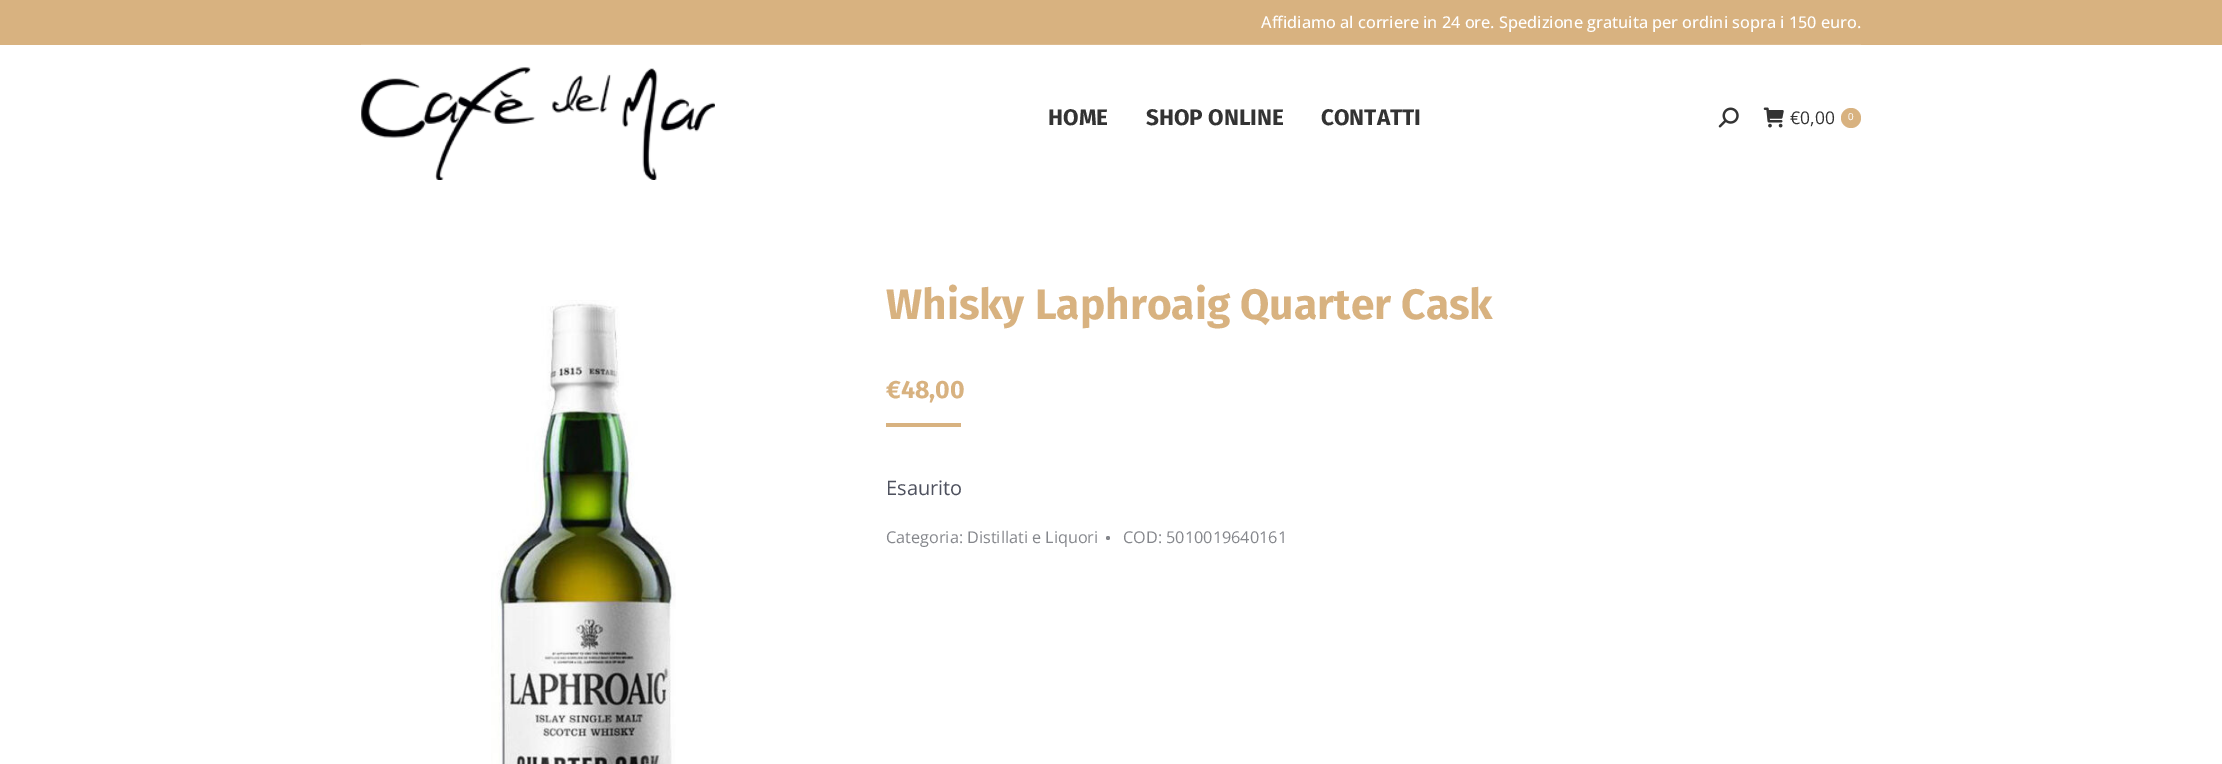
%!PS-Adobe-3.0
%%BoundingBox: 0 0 2222 764
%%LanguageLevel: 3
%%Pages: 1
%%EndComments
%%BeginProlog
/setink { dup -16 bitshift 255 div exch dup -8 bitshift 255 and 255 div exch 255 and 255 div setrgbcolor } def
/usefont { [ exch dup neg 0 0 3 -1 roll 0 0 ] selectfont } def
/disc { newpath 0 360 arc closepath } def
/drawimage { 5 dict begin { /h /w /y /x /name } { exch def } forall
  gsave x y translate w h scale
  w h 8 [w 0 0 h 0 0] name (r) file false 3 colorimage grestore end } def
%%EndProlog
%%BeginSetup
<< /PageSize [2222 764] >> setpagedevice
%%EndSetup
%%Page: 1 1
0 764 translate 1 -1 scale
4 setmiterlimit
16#FFFFFF setink
0 0 2222 764 rectfill
16#D8B280 setink
0 0 2222 45 rectfill
/OpenSans-Medium 16.25 usefont
16#FFFFFF setink
1261 28 moveto (Affidiamo al corriere in 24 ore. Spedizione gratuita per ordini sopra i 150 euro.) show
16#DDBB8F setink
361 44 1500 1 rectfill
(img1.raw) 361 67 354 113 drawimage
/FiraSans-Bold 22.5 usefont
16#333333 setink
[
    [(HOME) 1048 125]
    [(SHOP ONLINE) 1146 125]
    [(CONTATTI) 1321 125]
] { aload pop moveto show } forall
(img2.raw) 1718 107 21 21 drawimage
(img3.raw) 1763 107 21 21 drawimage
/OpenSans-Regular 17.5 usefont
1790 124 moveto (€0,00) show
16#D8B280 setink
1851 118 10 disc fill
/LiberationSans-Regular 10 usefont
16#FFFFFF setink
1848 120 moveto (0) show
(img4.raw) 491 300 185 464 drawimage
/FiraSans-Bold 42.5 usefont
16#D8B280 setink
886 319 moveto (Whisky Laphroaig Quarter Cask) show
/FiraSans-Bold 25 usefont
886 398 moveto (€48,00) show
886 423 75 4 rectfill
/OpenSans-Regular 20 usefont
16#4E515E setink
886 495 moveto (Esaurito) show
/OpenSans-Regular 16.25 usefont
16#85878C setink
886 543 moveto (Categoria: Distillati e Liquori) show
1108 538 2 disc fill
1123 543 moveto (COD: 5010019640161) show
showpage
%%EOF
